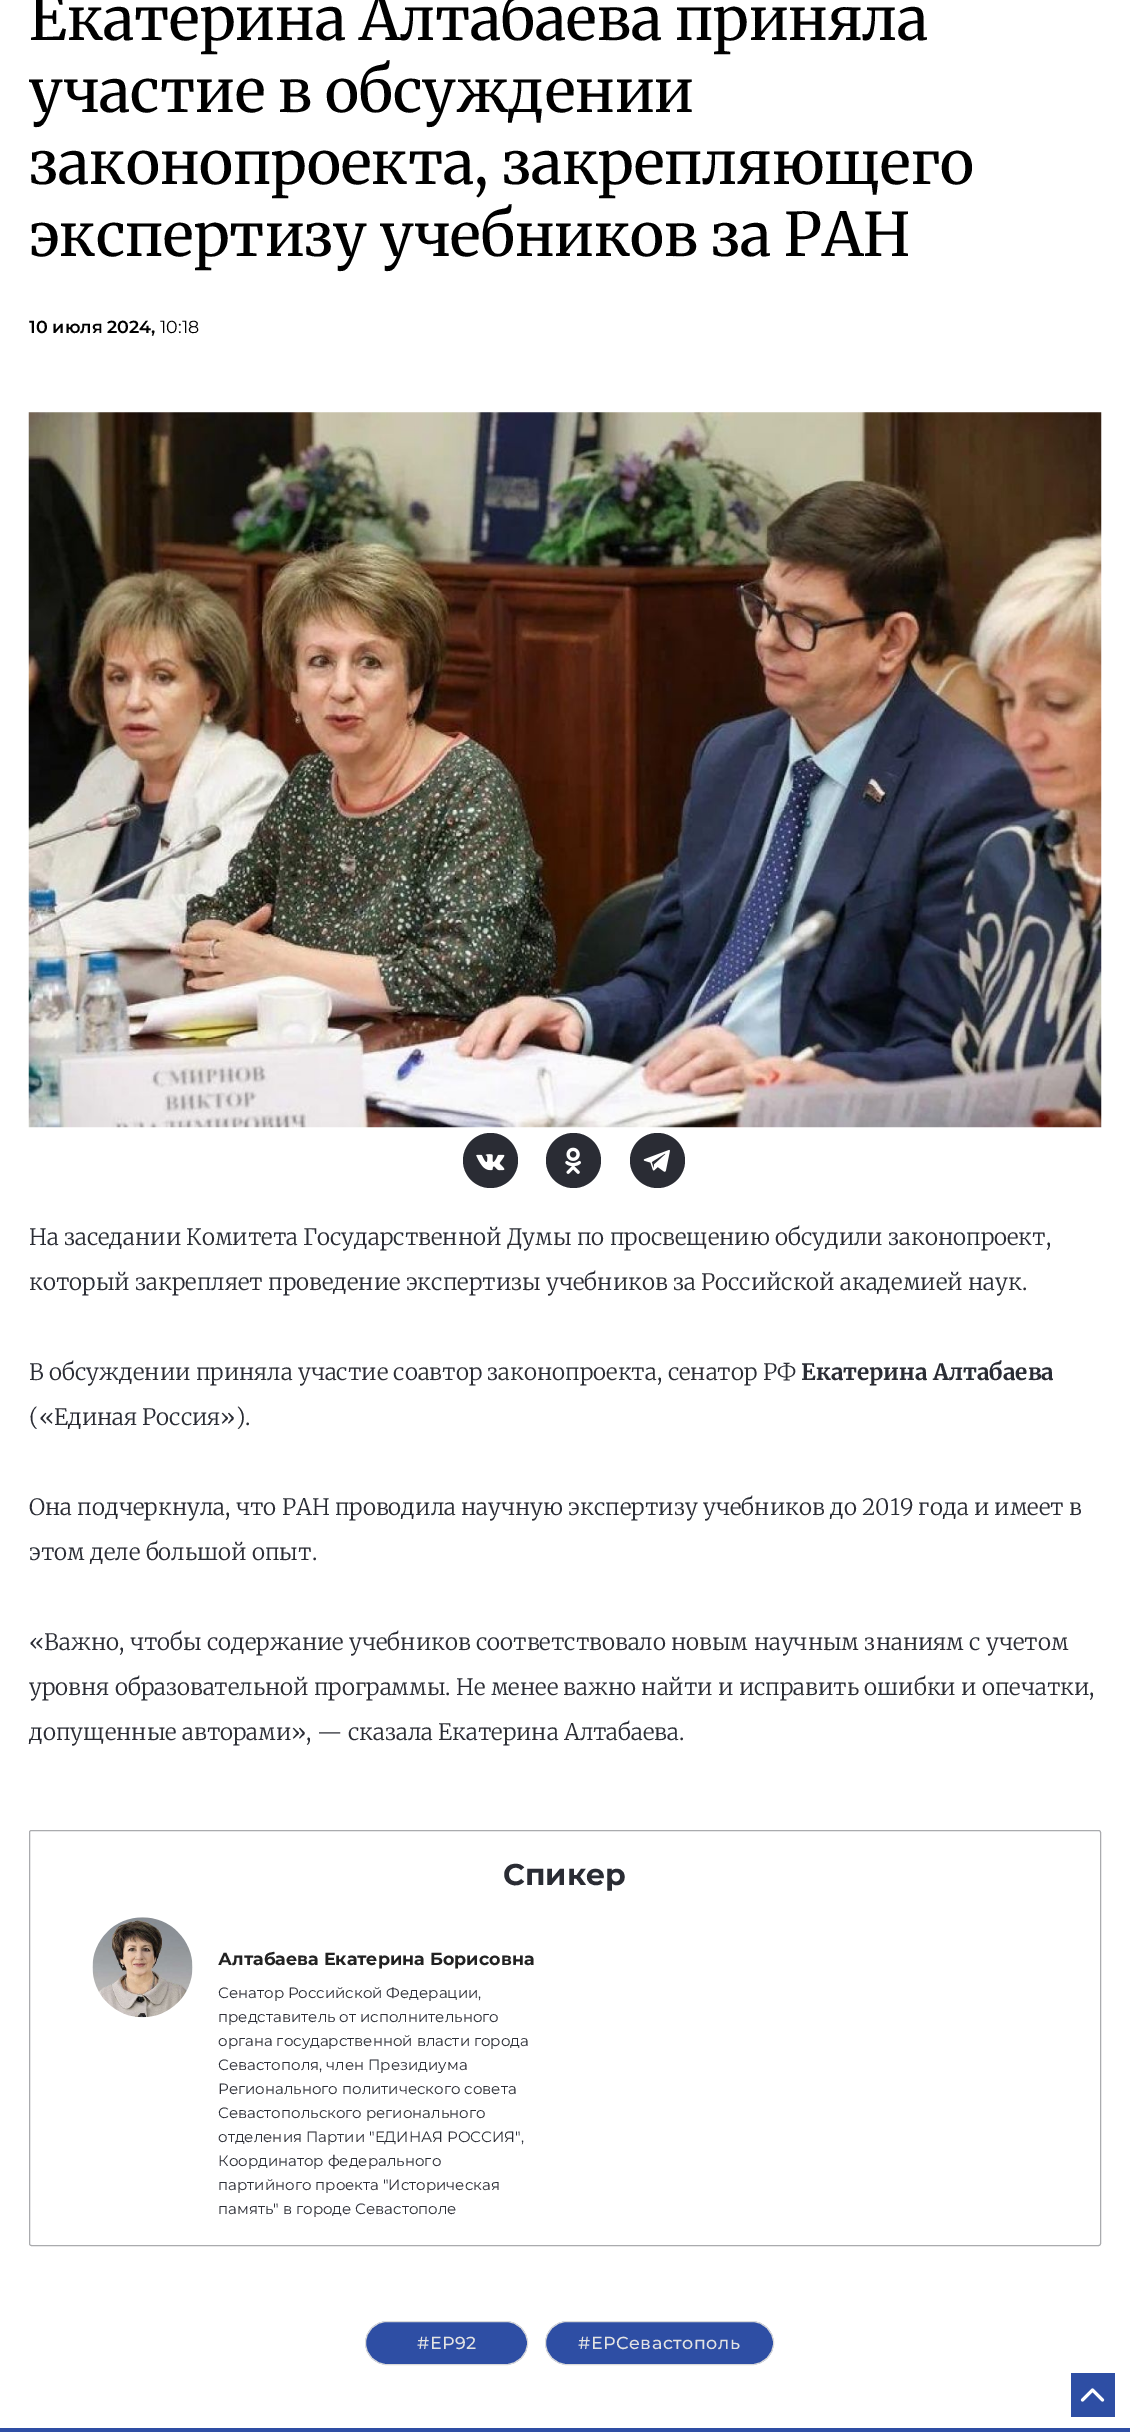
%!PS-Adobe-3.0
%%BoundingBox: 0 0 1130 2432
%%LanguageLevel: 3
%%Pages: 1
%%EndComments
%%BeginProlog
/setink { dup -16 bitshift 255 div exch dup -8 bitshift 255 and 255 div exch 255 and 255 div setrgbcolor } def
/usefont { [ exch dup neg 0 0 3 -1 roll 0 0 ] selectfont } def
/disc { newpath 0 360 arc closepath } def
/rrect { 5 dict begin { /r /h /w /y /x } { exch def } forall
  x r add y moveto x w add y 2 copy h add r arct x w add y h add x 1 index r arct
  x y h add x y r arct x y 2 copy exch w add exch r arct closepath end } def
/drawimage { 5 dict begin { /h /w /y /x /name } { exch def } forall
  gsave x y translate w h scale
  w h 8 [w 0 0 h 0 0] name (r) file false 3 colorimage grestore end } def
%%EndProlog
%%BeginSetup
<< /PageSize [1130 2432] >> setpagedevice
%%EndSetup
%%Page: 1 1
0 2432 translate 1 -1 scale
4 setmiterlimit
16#FFFFFF setink
0 0 1130 2432 rectfill
/Merriweather-Regular 60 usefont
16#000000 setink
[
    [(Екатерина Алтабаева приняла) 29 40]
    [(участие в обсуждении) 29 112]
    [(законопроекта, закрепляющего) 29 184]
    [(экспертизу учебников за РАН) 29 256]
] { aload pop moveto show } forall
/Montserrat-SemiBold 17.5 usefont
29 333 moveto (10 июля 2024,) show
/Montserrat-Regular 17.5 usefont
160 333 moveto (10:18) show
(img1.raw) 28 412 1074 716 drawimage
16#2A2C34 setink
490.5 1160.5 27.5 disc fill
(img2.raw) 476 1154 29 17 drawimage
573.5 1160.5 27.5 disc fill
(img3.raw) 565 1147 16 27 drawimage
657.5 1160.5 27.5 disc fill
(img4.raw) 643 1149 27 23 drawimage
/Merriweather-Light 22.5 usefont
[
    [(На заседании Комитета Государственной Думы по просвещению обсудили законопроект,) 29 1245]
    [(который закрепляет проведение экспертизы учебников за Российской академией наук.) 29 1290]
    [(В обсуждении приняла участие соавтор законопроекта, сенатор РФ) 29 1380]
] { aload pop moveto show } forall
/Merriweather-Bold 22.5 usefont
801 1380 moveto (Екатерина Алтабаева) show
/Merriweather-Light 22.5 usefont
[
    [(\(«Единая Россия»\).) 29 1425]
    [(Она подчеркнула, что РАН проводила научную экспертизу учебников до 2019 года и имеет в) 29 1515]
    [(этом деле большой опыт.) 29 1560]
    [(«Важно, чтобы содержание учебников соответствовало новым научным знаниям с учетом) 29 1650]
    [(уровня образовательной программы. Не менее важно найти и исправить ошибки и опечатки,) 29 1695]
    [(допущенные авторами», — сказала Екатерина Алтабаева.) 29 1740]
] { aload pop moveto show } forall
16#AAABAE setink
29.5 1830.5 1071 415 2 rrect stroke
/Montserrat-Bold 30 usefont
16#2A2C34 setink
503 1885 moveto (Спикер) show
(img5.raw) 92 1917 101 101 drawimage
/Montserrat-Bold 17.5 usefont
16#222222 setink
218 1965 moveto (Алтабаева Екатерина Борисовна) show
/Montserrat-Regular 15 usefont
16#2A2C34 setink
[
    [(Сенатор Российской Федерации,) 218 1998]
    [(представитель от исполнительного) 218 2022]
    [(органа государственной власти города) 218 2046]
    [(Севастополя, член Президиума) 218 2070]
    [(Регионального политического совета) 218 2094]
    [(Севастопольского регионального) 218 2118]
    [(отделения Партии "ЕДИНАЯ РОССИЯ",) 218 2142]
    [(Координатор федерального) 218 2166]
    [(партийного проекта "Историческая) 218 2190]
    [(память" в городе Севастополе) 218 2214]
] { aload pop moveto show } forall
16#2E4EA4 setink
365.5 2321.5 162 43 21.5 rrect gsave fill grestore
16#DADADA setink
stroke
/Montserrat-Medium 17.5 usefont
16#E3E3E3 setink
417 2349 moveto 0.5 0 (#ЕР92) ashow
16#2E4EA4 setink
545.5 2321.5 228 43 21.5 rrect gsave fill grestore
16#DADADA setink
stroke
16#E3E3E3 setink
578 2349 moveto 0.5 0 (#ЕРСевастополь) ashow
16#2E4EA4 setink
0 2428 1130 4 rectfill
1071 2373 44 44 rectfill
(img6.raw) 1080 2388 25 14 drawimage
showpage
%%EOF
